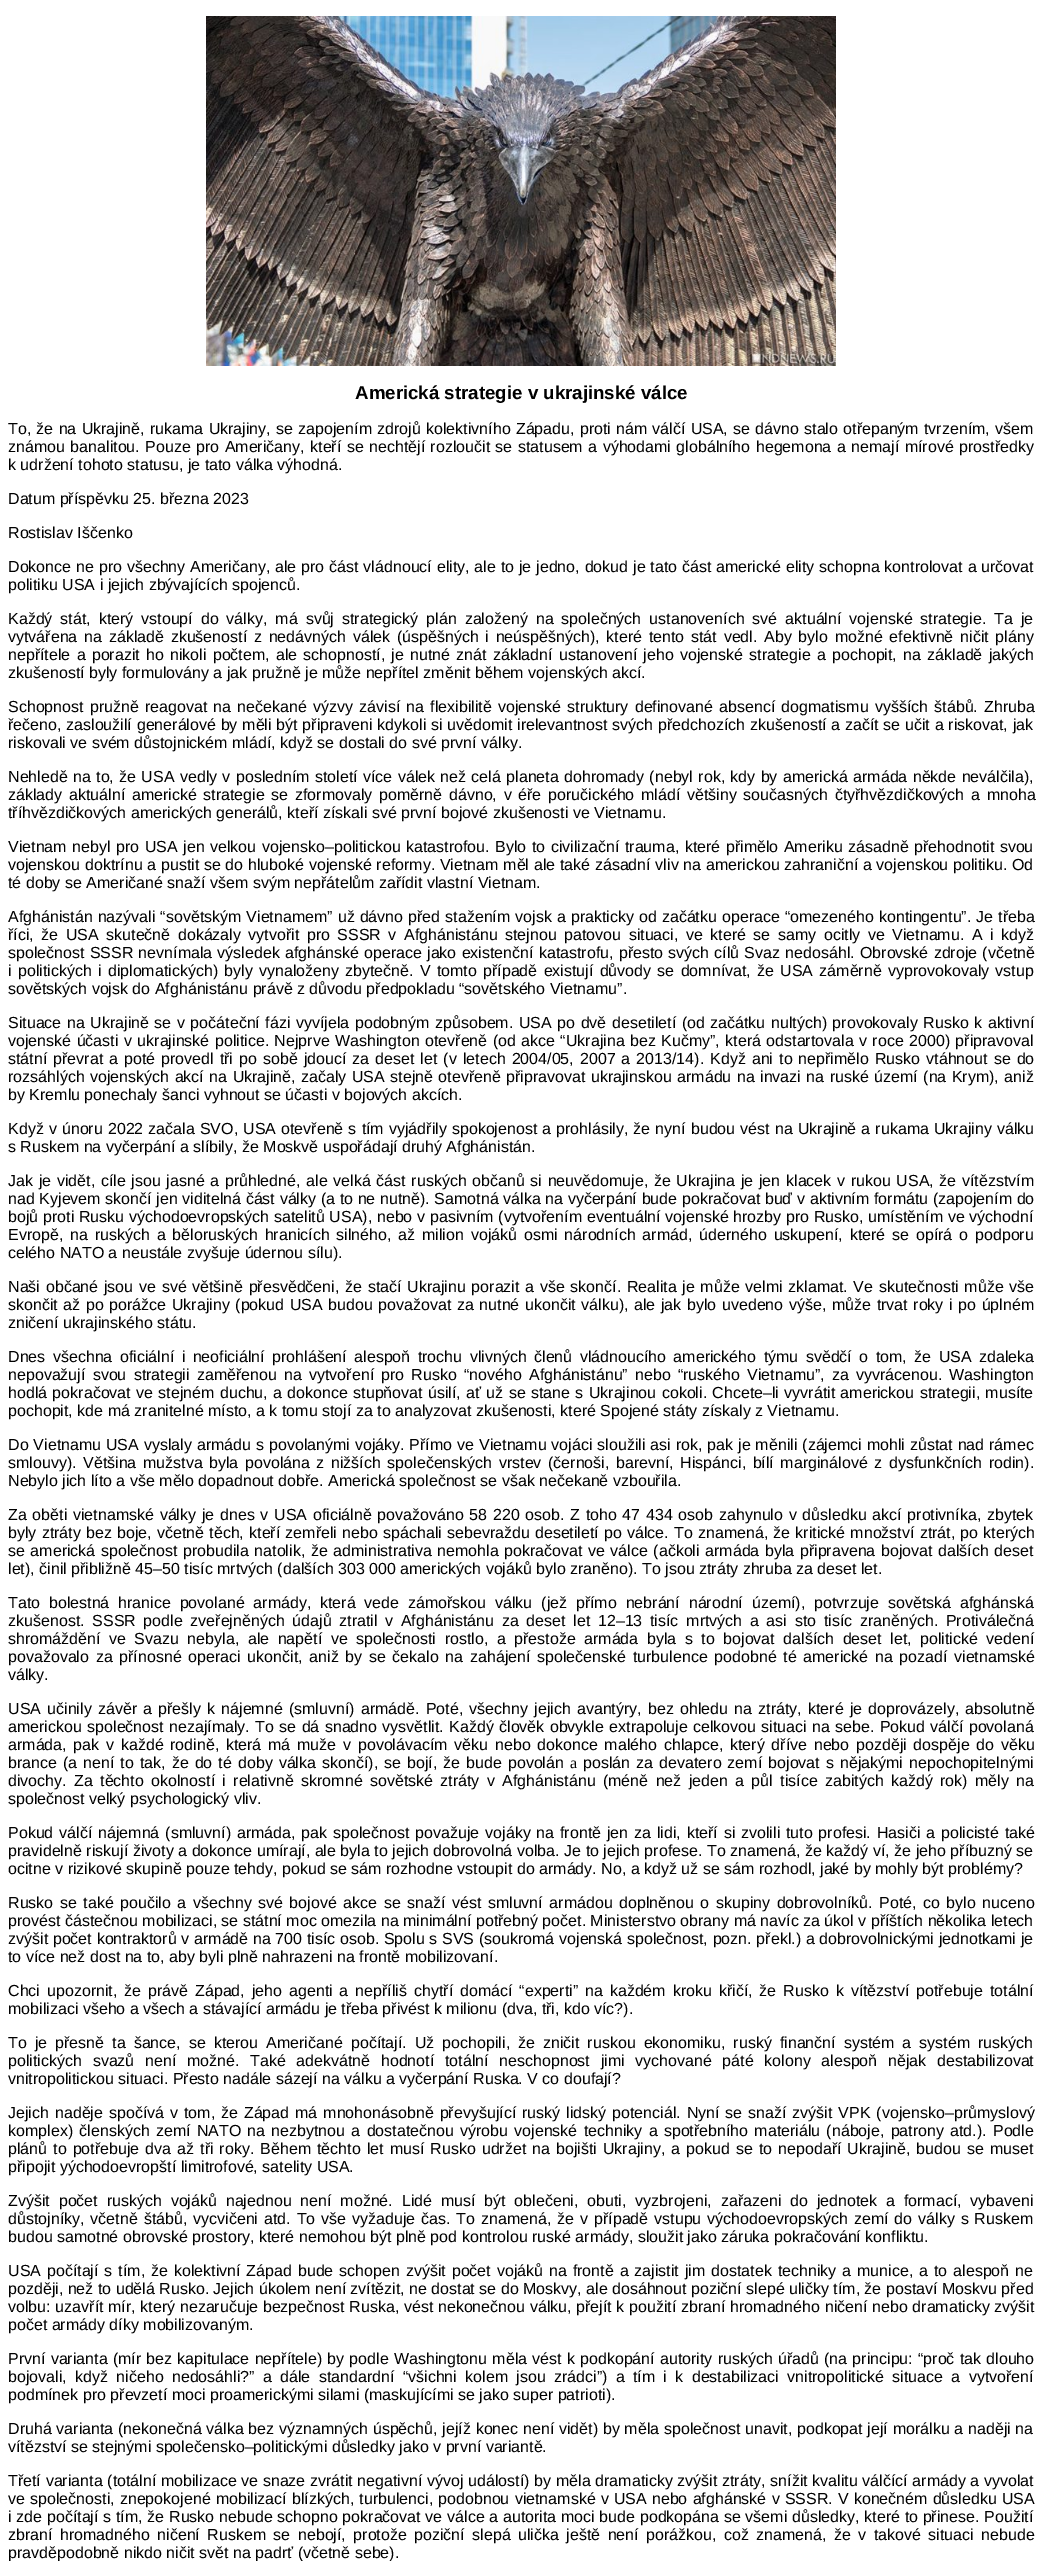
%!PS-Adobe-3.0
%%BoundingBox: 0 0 1042 2561
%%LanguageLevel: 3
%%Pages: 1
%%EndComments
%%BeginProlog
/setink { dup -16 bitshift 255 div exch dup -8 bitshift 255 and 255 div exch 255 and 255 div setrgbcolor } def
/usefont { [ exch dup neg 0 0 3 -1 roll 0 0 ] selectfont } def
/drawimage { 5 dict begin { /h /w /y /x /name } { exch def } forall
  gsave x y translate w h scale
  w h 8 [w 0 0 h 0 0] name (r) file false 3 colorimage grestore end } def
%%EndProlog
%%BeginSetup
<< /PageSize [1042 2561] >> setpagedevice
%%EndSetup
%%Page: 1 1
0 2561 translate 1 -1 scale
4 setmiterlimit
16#FFFFFF setink
0 0 1042 2561 rectfill
(img1.raw) 206 16 630 350 drawimage
/LiberationSans-Bold 18.7 usefont
16#000000 setink
355 399 moveto (Americká strategie v ukrajinské válce) show
/LiberationSans-Regular 16 usefont
8 434 moveto 0.8 0 32 (To, že na Ukrajině, rukama Ukrajiny, se zapojením zdrojů kolektivního Západu, proti nám válčí USA, se dávno stalo otřepaným tvrzením, všem) widthshow
8 452 moveto 1 0 32 (známou banalitou. Pouze pro Američany, kteří se nechtějí rozloučit se statusem a výhodami globálního hegemona a nemají mírové prostředky) widthshow
[
    [(k udržení tohoto statusu, je tato válka výhodná.) 8 470]
    [(Datum příspěvku 25. března 2023) 8 504]
    [(Rostislav Iščenko) 8 538]
] { aload pop moveto show } forall
8 572 moveto 0.4 0 32 (Dokonce ne pro všechny Američany, ale pro část vládnoucí elity, ale to je jedno, dokud je tato část americké elity schopna kontrolovat a určovat) widthshow
8 590 moveto (politiku USA i jejich zbývajících spojenců.) show
8 624 moveto 3.5 0 32 (Každý stát, který vstoupí do války, má svůj strategický plán založený na společných ustanoveních své aktuální vojenské strategie. Ta je) widthshow
8 642 moveto 2.3 0 32 (vytvářena na základě zkušeností z nedávných válek \(úspěšných i neúspěšných\), které tento stát vedl. Aby bylo možné efektivně ničit plány) widthshow
8 660 moveto 1.8 0 32 (nepřítele a porazit ho nikoli počtem, ale schopností, je nutné znát základní ustanovení jeho vojenské strategie a pochopit, na základě jakých) widthshow
8 678 moveto (zkušeností byly formulovány a jak pružně je může nepřítel změnit během vojenských akcí.) show
8 712 moveto 1.75 0 32 (Schopnost pružně reagovat na nečekané výzvy závisí na flexibilitě vojenské struktury definované absencí dogmatismu vyšších štábů. Zhruba) widthshow
8 730 moveto 0.3 0 32 (řečeno, zasloužilí generálové by měli být připraveni kdykoli si uvědomit irelevantnost svých předchozích zkušeností a začít se učit a riskovat, jak) widthshow
8 748 moveto (riskovali ve svém důstojnickém mládí, když se dostali do své první války.) show
8 782 moveto 0.9 0 32 (Nehledě na to, že USA vedly v posledním století více válek než celá planeta dohromady \(nebyl rok, kdy by americká armáda někde neválčila\),) widthshow
8 800 moveto 2.25 0 32 (základy aktuální americké strategie se zformovaly poměrně dávno, v éře poručického mládí většiny současných čtyřhvězdičkových a mnoha) widthshow
8 818 moveto (tříhvězdičkových amerických generálů, kteří získali své první bojové zkušenosti ve Vietnamu.) show
8 852 moveto 1.1 0 32 (Vietnam nebyl pro USA jen velkou vojensko–politickou katastrofou. Bylo to civilizační trauma, které přimělo Ameriku zásadně přehodnotit svou) widthshow
8 870 moveto 0.25 0 32 (vojenskou doktrínu a pustit se do hluboké vojenské reformy. Vietnam měl ale také zásadní vliv na americkou zahraniční a vojenskou politiku. Od) widthshow
8 888 moveto (té doby se Američané snaží všem svým nepřátelům zařídit vlastní Vietnam.) show
8 922 moveto 0.6 0 32 (Afghánistán nazývali “sovětským Vietnamem” už dávno před stažením vojsk a prakticky od začátku operace “omezeného kontingentu”. Je třeba) widthshow
8 940 moveto 3.1 0 32 (říci, že USA skutečně dokázaly vytvořit pro SSSR v Afghánistánu stejnou patovou situaci, ve které se samy ocitly ve Vietnamu. A i když) widthshow
8 958 moveto 0.75 0 32 (společnost SSSR nevnímala výsledek afghánské operace jako existenční katastrofu, přesto svých cílů Svaz nedosáhl. Obrovské zdroje \(včetně) widthshow
8 976 moveto 1.8 0 32 (i politických i diplomatických\) byly vynaloženy zbytečně. V tomto případě existují důvody se domnívat, že USA záměrně vyprovokovaly vstup) widthshow
8 994 moveto (sovětských vojsk do Afghánistánu právě z důvodu předpokladu “sovětského Vietnamu”.) show
8 1028 moveto 1.1 0 32 (Situace na Ukrajině se v počáteční fázi vyvíjela podobným způsobem. USA po dvě desetiletí \(od začátku nultých\) provokovaly Rusko k aktivní) widthshow
8 1046 moveto 1 0 32 (vojenské účasti v ukrajinské politice. Nejprve Washington otevřeně \(od akce “Ukrajina bez Kučmy”, která odstartovala v roce 2000\) připravoval) widthshow
8 1064 moveto 1.6 0 32 (státní převrat a poté provedl tři po sobě jdoucí za deset let \(v letech 2004/05, 2007 a 2013/14\). Když ani to nepřimělo Rusko vtáhnout se do) widthshow
8 1082 moveto 1 0 32 (rozsáhlých vojenských akcí na Ukrajině, začaly USA stejně otevřeně připravovat ukrajinskou armádu na invazi na ruské území \(na Krym\), aniž) widthshow
8 1100 moveto (by Kremlu ponechaly šanci vyhnout se účasti v bojových akcích.) show
8 1134 moveto 0.65 0 32 (Když v únoru 2022 začala SVO, USA otevřeně s tím vyjádřily spokojenost a prohlásily, že nyní budou vést na Ukrajině a rukama Ukrajiny válku) widthshow
8 1152 moveto (s Ruskem na vyčerpání a slíbily, že Moskvě uspořádají druhý Afghánistán.) show
8 1186 moveto 1.25 0 32 (Jak je vidět, cíle jsou jasné a průhledné, ale velká část ruských občanů si neuvědomuje, že Ukrajina je jen klacek v rukou USA, že vítězstvím) widthshow
8 1204 moveto 0.2 0 32 (nad Kyjevem skončí jen viditelná část války \(a to ne nutně\). Samotná válka na vyčerpání bude pokračovat buď v aktivním formátu \(zapojením do) widthshow
8 1222 moveto 0.25 0 32 (bojů proti Rusku východoevropských satelitů USA\), nebo v pasivním \(vytvořením eventuální vojenské hrozby pro Rusko, umístěním ve východní) widthshow
8 1240 moveto 2.4 0 32 (Evropě, na ruských a běloruských hranicích silného, až milion vojáků osmi národních armád, úderného uskupení, které se opírá o podporu) widthshow
8 1258 moveto (celého NATO a neustále zvyšuje údernou sílu\).) show
8 1292 moveto 1.25 0 32 (Naši občané jsou ve své většině přesvědčeni, že stačí Ukrajinu porazit a vše skončí. Realita je může velmi zklamat. Ve skutečnosti může vše) widthshow
8 1310 moveto 1.15 0 32 (skončit až po porážce Ukrajiny \(pokud USA budou považovat za nutné ukončit válku\), ale jak bylo uvedeno výše, může trvat roky i po úplném) widthshow
8 1328 moveto (zničení ukrajinského státu.) show
8 1362 moveto 3 0 32 (Dnes všechna oficiální i neoficiální prohlášení alespoň trochu vlivných členů vládnoucího amerického týmu svědčí o tom, že USA zdaleka) widthshow
8 1380 moveto 2.75 0 32 (nepovažují svou strategii zaměřenou na vytvoření pro Rusko “nového Afghánistánu” nebo “ruského Vietnamu”, za vyvrácenou. Washington) widthshow
8 1398 moveto 0.9 0 32 (hodlá pokračovat ve stejném duchu, a dokonce stupňovat úsilí, ať už se stane s Ukrajinou cokoli. Chcete–li vyvrátit americkou strategii, musíte) widthshow
8 1416 moveto (pochopit, kde má zranitelné místo, a k tomu stojí za to analyzovat zkušenosti, které Spojené státy získaly z Vietnamu.) show
8 1450 moveto 0.5 0 32 (Do Vietnamu USA vyslaly armádu s povolanými vojáky. Přímo ve Vietnamu vojáci sloužili asi rok, pak je měnili \(zájemci mohli zůstat nad rámec) widthshow
8 1468 moveto 2.1 0 32 (smlouvy\). Většina mužstva byla povolána z nižších společenských vrstev \(černoši, barevní, Hispánci, bílí marginálové z dysfunkčních rodin\).) widthshow
8 1486 moveto (Nebylo jich líto a vše mělo dopadnout dobře. Americká společnost se však nečekaně vzbouřila.) show
8 1520 moveto 1.3 0 32 (Za oběti vietnamské války je dnes v USA oficiálně považováno 58 220 osob. Z toho 47 434 osob zahynulo v důsledku akcí protivníka, zbytek) widthshow
8 1538 moveto 0.75 0 32 (byly ztráty bez boje, včetně těch, kteří zemřeli nebo spáchali sebevraždu desetiletí po válce. To znamená, že kritické množství ztrát, po kterých) widthshow
8 1556 moveto 1.1 0 32 (se americká společnost probudila natolik, že administrativa nemohla pokračovat ve válce \(ačkoli armáda byla připravena bojovat dalších deset) widthshow
8 1574 moveto (let\), činil přibližně 45–50 tisíc mrtvých \(dalších 303 000 amerických vojáků bylo zraněno\). To jsou ztráty zhruba za deset let.) show
8 1608 moveto 4.4 0 32 (Tato bolestná hranice povolané armády, která vede zámořskou válku \(jež přímo nebrání národní území\), potvrzuje sovětská afghánská) widthshow
8 1626 moveto 3.25 0 32 (zkušenost. SSSR podle zveřejněných údajů ztratil v Afghánistánu za deset let 12–13 tisíc mrtvých a asi sto tisíc zraněných. Protiválečná) widthshow
8 1644 moveto 4.1 0 32 (shromáždění ve Svazu nebyla, ale napětí ve společnosti rostlo, a přestože armáda byla s to bojovat dalších deset let, politické vedení) widthshow
8 1662 moveto 2.25 0 32 (považovalo za přínosné operaci ukončit, aniž by se čekalo na zahájení společenské turbulence podobné té americké na pozadí vietnamské) widthshow
8 1680 moveto (války.) show
8 1714 moveto 1.75 0 32 (USA učinily závěr a přešly k nájemné \(smluvní\) armádě. Poté, všechny jejich avantýry, bez ohledu na ztráty, které je doprovázely, absolutně) widthshow
8 1732 moveto 0.9 0 32 (americkou společnost nezajímaly. To se dá snadno vysvětlit. Každý člověk obvykle extrapoluje celkovou situaci na sebe. Pokud válčí povolaná) widthshow
8 1750 moveto 2.3 0 32 (armáda, pak v každé rodině, která má muže v povolávacím věku nebo dokonce malého chlapce, který dříve nebo později dospěje do věku) widthshow
8 1768 moveto 1.6 0 32 (brance \(a není to tak, že do té doby válka skončí\), se bojí, že bude povolán) widthshow
/LiberationSerif-Regular 16 usefont
570 1768 moveto (a) show
16#FFFFFF setink
577 1767 1 1 rectfill
/LiberationSans-Regular 16 usefont
16#000000 setink
583 1768 moveto 1.6 0 32 (poslán za devatero zemí bojovat s nějakými nepochopitelnými) widthshow
8 1786 moveto 2.9 0 32 (divochy. Za těchto okolností i relativně skromné sovětské ztráty v Afghánistánu \(méně než jeden a půl tisíce zabitých každý rok\) měly na) widthshow
8 1804 moveto (společnost velký psychologický vliv.) show
8 1838 moveto 1.4 0 32 (Pokud válčí nájemná \(smluvní\) armáda, pak společnost považuje vojáky na frontě jen za lidi, kteří si zvolili tuto profesi. Hasiči a policisté také) widthshow
8 1856 moveto 0.1 0 32 (pravidelně riskují životy a dokonce umírají, ale byla to jejich dobrovolná volba. Je to jejich profese. To znamená, že každý ví, že jeho příbuzný se) widthshow
8 1874 moveto (ocitne v rizikové skupině pouze tehdy, pokud se sám rozhodne vstoupit do armády. No, a když už se sám rozhodl, jaké by mohly být problémy?) show
8 1908 moveto 2.1 0 32 (Rusko se také poučilo a všechny své bojové akce se snaží vést smluvní armádou doplněnou o skupiny dobrovolníků. Poté, co bylo nuceno) widthshow
8 1926 moveto (provést částečnou mobilizaci, se státní moc omezila na minimální potřebný počet. Ministerstvo obrany má navíc za úkol v příštích několika letech) show
8 1944 moveto 0.25 0 32 (zvýšit počet kontraktorů v armádě na 700 tisíc osob. Spolu s SVS \(soukromá vojenská společnost, pozn. překl.\) a dobrovolnickými jednotkami je) widthshow
8 1962 moveto (to více než dost na to, aby byli plně nahrazeni na frontě mobilizovaní.) show
8 1996 moveto 2.5 0 32 (Chci upozornit, že právě Západ, jeho agenti a nepříliš chytří domácí “experti” na každém kroku křičí, že Rusko k vítězství potřebuje totální) widthshow
8 2014 moveto (mobilizaci všeho a všech a stávající armádu je třeba přivést k milionu \(dva, tři, kdo víc?\).) show
8 2048 moveto 3.6 0 32 (To je přesně ta šance, se kterou Američané počítají. Už pochopili, že zničit ruskou ekonomiku, ruský finanční systém a systém ruských) widthshow
8 2066 moveto 6.25 0 32 (politických svazů není možné. Také adekvátně hodnotí totální neschopnost jimi vychované páté kolony alespoň nějak destabilizovat) widthshow
8 2084 moveto (vnitropolitickou situaci. Přesto nadále sázejí na válku a vyčerpání Ruska. V co doufají?) show
8 2118 moveto 1.5 0 32 (Jejich naděje spočívá v tom, že Západ má mnohonásobně převyšující ruský lidský potenciál. Nyní se snaží zvýšit VPK \(vojensko–průmyslový) widthshow
8 2136 moveto 1.8 0 32 (komplex\) členských zemí NATO na nezbytnou a dostatečnou výrobu vojenské techniky a spotřebního materiálu \(náboje, patrony atd.\). Podle) widthshow
8 2154 moveto 1.6 0 32 (plánů to potřebuje dva až tři roky. Během těchto let musí Rusko udržet na bojišti Ukrajiny, a pokud se to nepodaří Ukrajině, budou se muset) widthshow
8 2172 moveto (připojit yýchodoevropští limitrofové, satelity USA.) show
8 2206 moveto 4.4 0 32 (Zvýšit počet ruských vojáků najednou není možné. Lidé musí být oblečeni, obuti, vyzbrojeni, zařazeni do jednotek a formací, vybaveni) widthshow
8 2224 moveto 1.5 0 32 (důstojníky, včetně štábů, vycvičeni atd. To vše vyžaduje čas. To znamená, že v případě vstupu východoevropských zemí do války s Ruskem) widthshow
8 2242 moveto (budou samotné obrovské prostory, které nemohou být plně pod kontrolou ruské armády, sloužit jako záruka pokračování konfliktu.) show
8 2276 moveto 1.5 0 32 (USA počítají s tím, že kolektivní Západ bude schopen zvýšit počet vojáků na frontě a zajistit jim dostatek techniky a munice, a to alespoň ne) widthshow
8 2294 moveto (později, než to udělá Rusko. Jejich úkolem není zvítězit, ne dostat se do Moskvy, ale dosáhnout poziční slepé uličky tím, že postaví Moskvu před) show
8 2312 moveto 0.25 0 32 (volbu: uzavřít mír, který nezaručuje bezpečnost Ruska, vést nekonečnou válku, přejít k použití zbraní hromadného ničení nebo dramaticky zvýšit) widthshow
8 2330 moveto (počet armády díky mobilizovaným.) show
8 2364 moveto 0.75 0 32 (První varianta \(mír bez kapitulace nepřítele\) by podle Washingtonu měla vést k podkopání autority ruských úřadů \(na principu: “proč tak dlouho) widthshow
8 2382 moveto 3.9 0 32 (bojovali, když ničeho nedosáhli?” a dále standardní “všichni kolem jsou zrádci”\) a tím i k destabilizaci vnitropolitické situace a vytvoření) widthshow
8 2400 moveto (podmínek pro převzetí moci proamerickými silami \(maskujícími se jako super patrioti\).) show
8 2434 moveto 0.3 0 32 (Druhá varianta \(nekonečná válka bez významných úspěchů, jejíž konec není vidět\) by měla společnost unavit, podkopat její morálku a naději na) widthshow
8 2452 moveto (vítězství se stejnými společensko–politickými důsledky jako v první variantě.) show
8 2486 moveto 0.25 0 32 (Třetí varianta \(totální mobilizace ve snaze zvrátit negativní vývoj událostí\) by měla dramaticky zvýšit ztráty, snížit kvalitu válčící armády a vyvolat) widthshow
8 2504 moveto 0.7 0 32 (ve společnosti, znepokojené mobilizací blízkých, turbulenci, podobnou vietnamské v USA nebo afghánské v SSSR. V konečném důsledku USA) widthshow
8 2522 moveto 0.3 0 32 (i zde počítají s tím, že Rusko nebude schopno pokračovat ve válce a autorita moci bude podkopána se všemi důsledky, které to přinese. Použití) widthshow
8 2540 moveto 3 0 32 (zbraní hromadného ničení Ruskem se nebojí, protože poziční slepá ulička ještě není porážkou, což znamená, že v takové situaci nebude) widthshow
8 2558 moveto (pravděpodobně nikdo ničit svět na padrť \(včetně sebe\).) show
showpage
%%EOF
